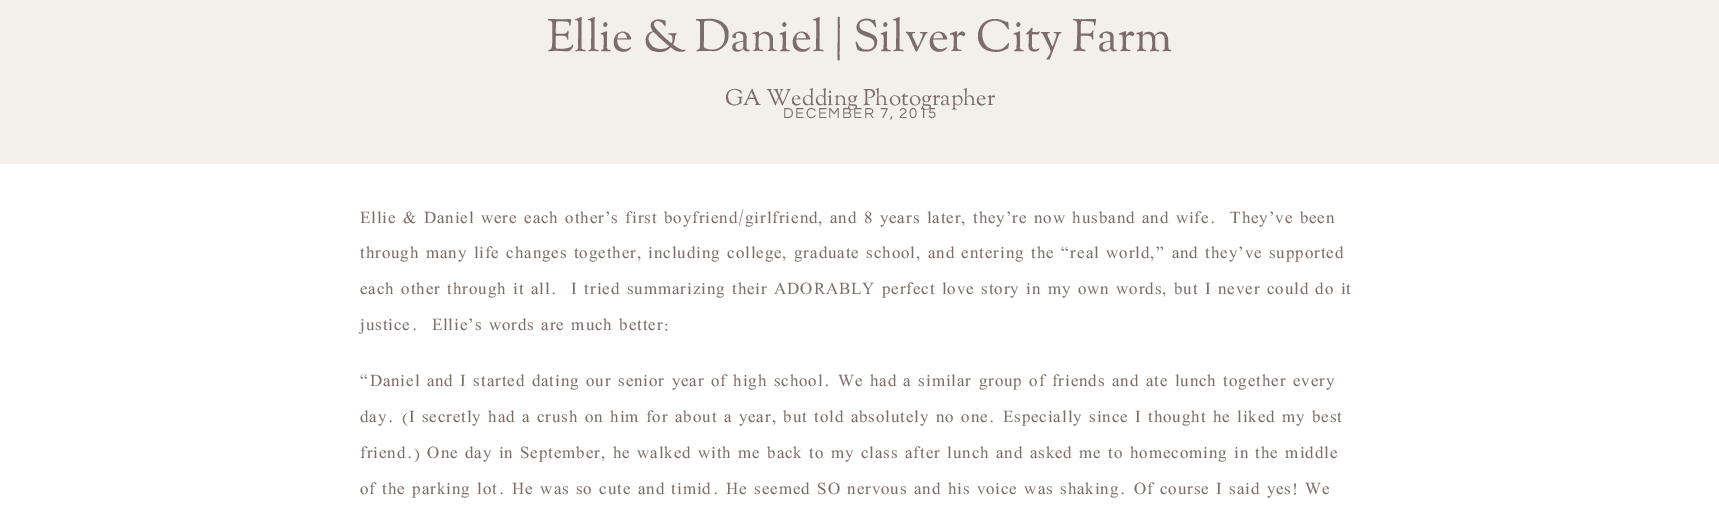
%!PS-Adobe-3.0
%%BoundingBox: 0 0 1719 512
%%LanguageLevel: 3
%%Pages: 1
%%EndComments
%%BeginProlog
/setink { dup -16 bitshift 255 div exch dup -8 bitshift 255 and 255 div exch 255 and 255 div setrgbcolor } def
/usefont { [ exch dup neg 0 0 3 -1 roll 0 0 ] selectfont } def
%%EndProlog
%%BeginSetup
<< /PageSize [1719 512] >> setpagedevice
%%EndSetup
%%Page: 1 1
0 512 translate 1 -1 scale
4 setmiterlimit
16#FFFFFF setink
0 0 1719 512 rectfill
16#F3F0E9 setink
0 0 1719 164 rectfill
/SortsMillGoudy-Regular 45 usefont
16#7C6D69 setink
547 51 moveto (Ellie & Daniel | Silver City Farm) show
/SortsMillGoudy-Regular 22.5 usefont
725 105 moveto (GA Wedding Photographer) show
/Questrial-Regular 15 usefont
783 118 moveto 1.5 0 (DECEMBER 7, 2015) ashow
/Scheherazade-Regular 22.5 usefont
360 223 moveto 0.9 0 (Ellie & Daniel were each other’s first boyfriend/girlfriend, and 8 years later, they’re now husband and wife.  They’ve been) ashow
360 258 moveto 0.9 0 (through many life changes together, including college, graduate school, and entering the “real world,” and they’ve supported) ashow
360 294 moveto 0.9 0 (each other through it all.  I tried summarizing their ADORABLY perfect love story in my own words, but I never could do it) ashow
360 330 moveto 0.9 0 (justice.  Ellie’s words are much better:) ashow
360 386 moveto 0.9 0 (“Daniel and I started dating our senior year of high school. We had a similar group of friends and ate lunch together every) ashow
360 422 moveto 0.9 0 (day. \(I secretly had a crush on him for about a year, but told absolutely no one. Especially since I thought he liked my best) ashow
360 458 moveto 0.9 0 (friend.\) One day in September, he walked with me back to my class after lunch and asked me to homecoming in the middle) ashow
360 494 moveto 0.9 0 (of the parking lot. He was so cute and timid. He seemed SO nervous and his voice was shaking. Of course I said yes! We) ashow
showpage
%%EOF
